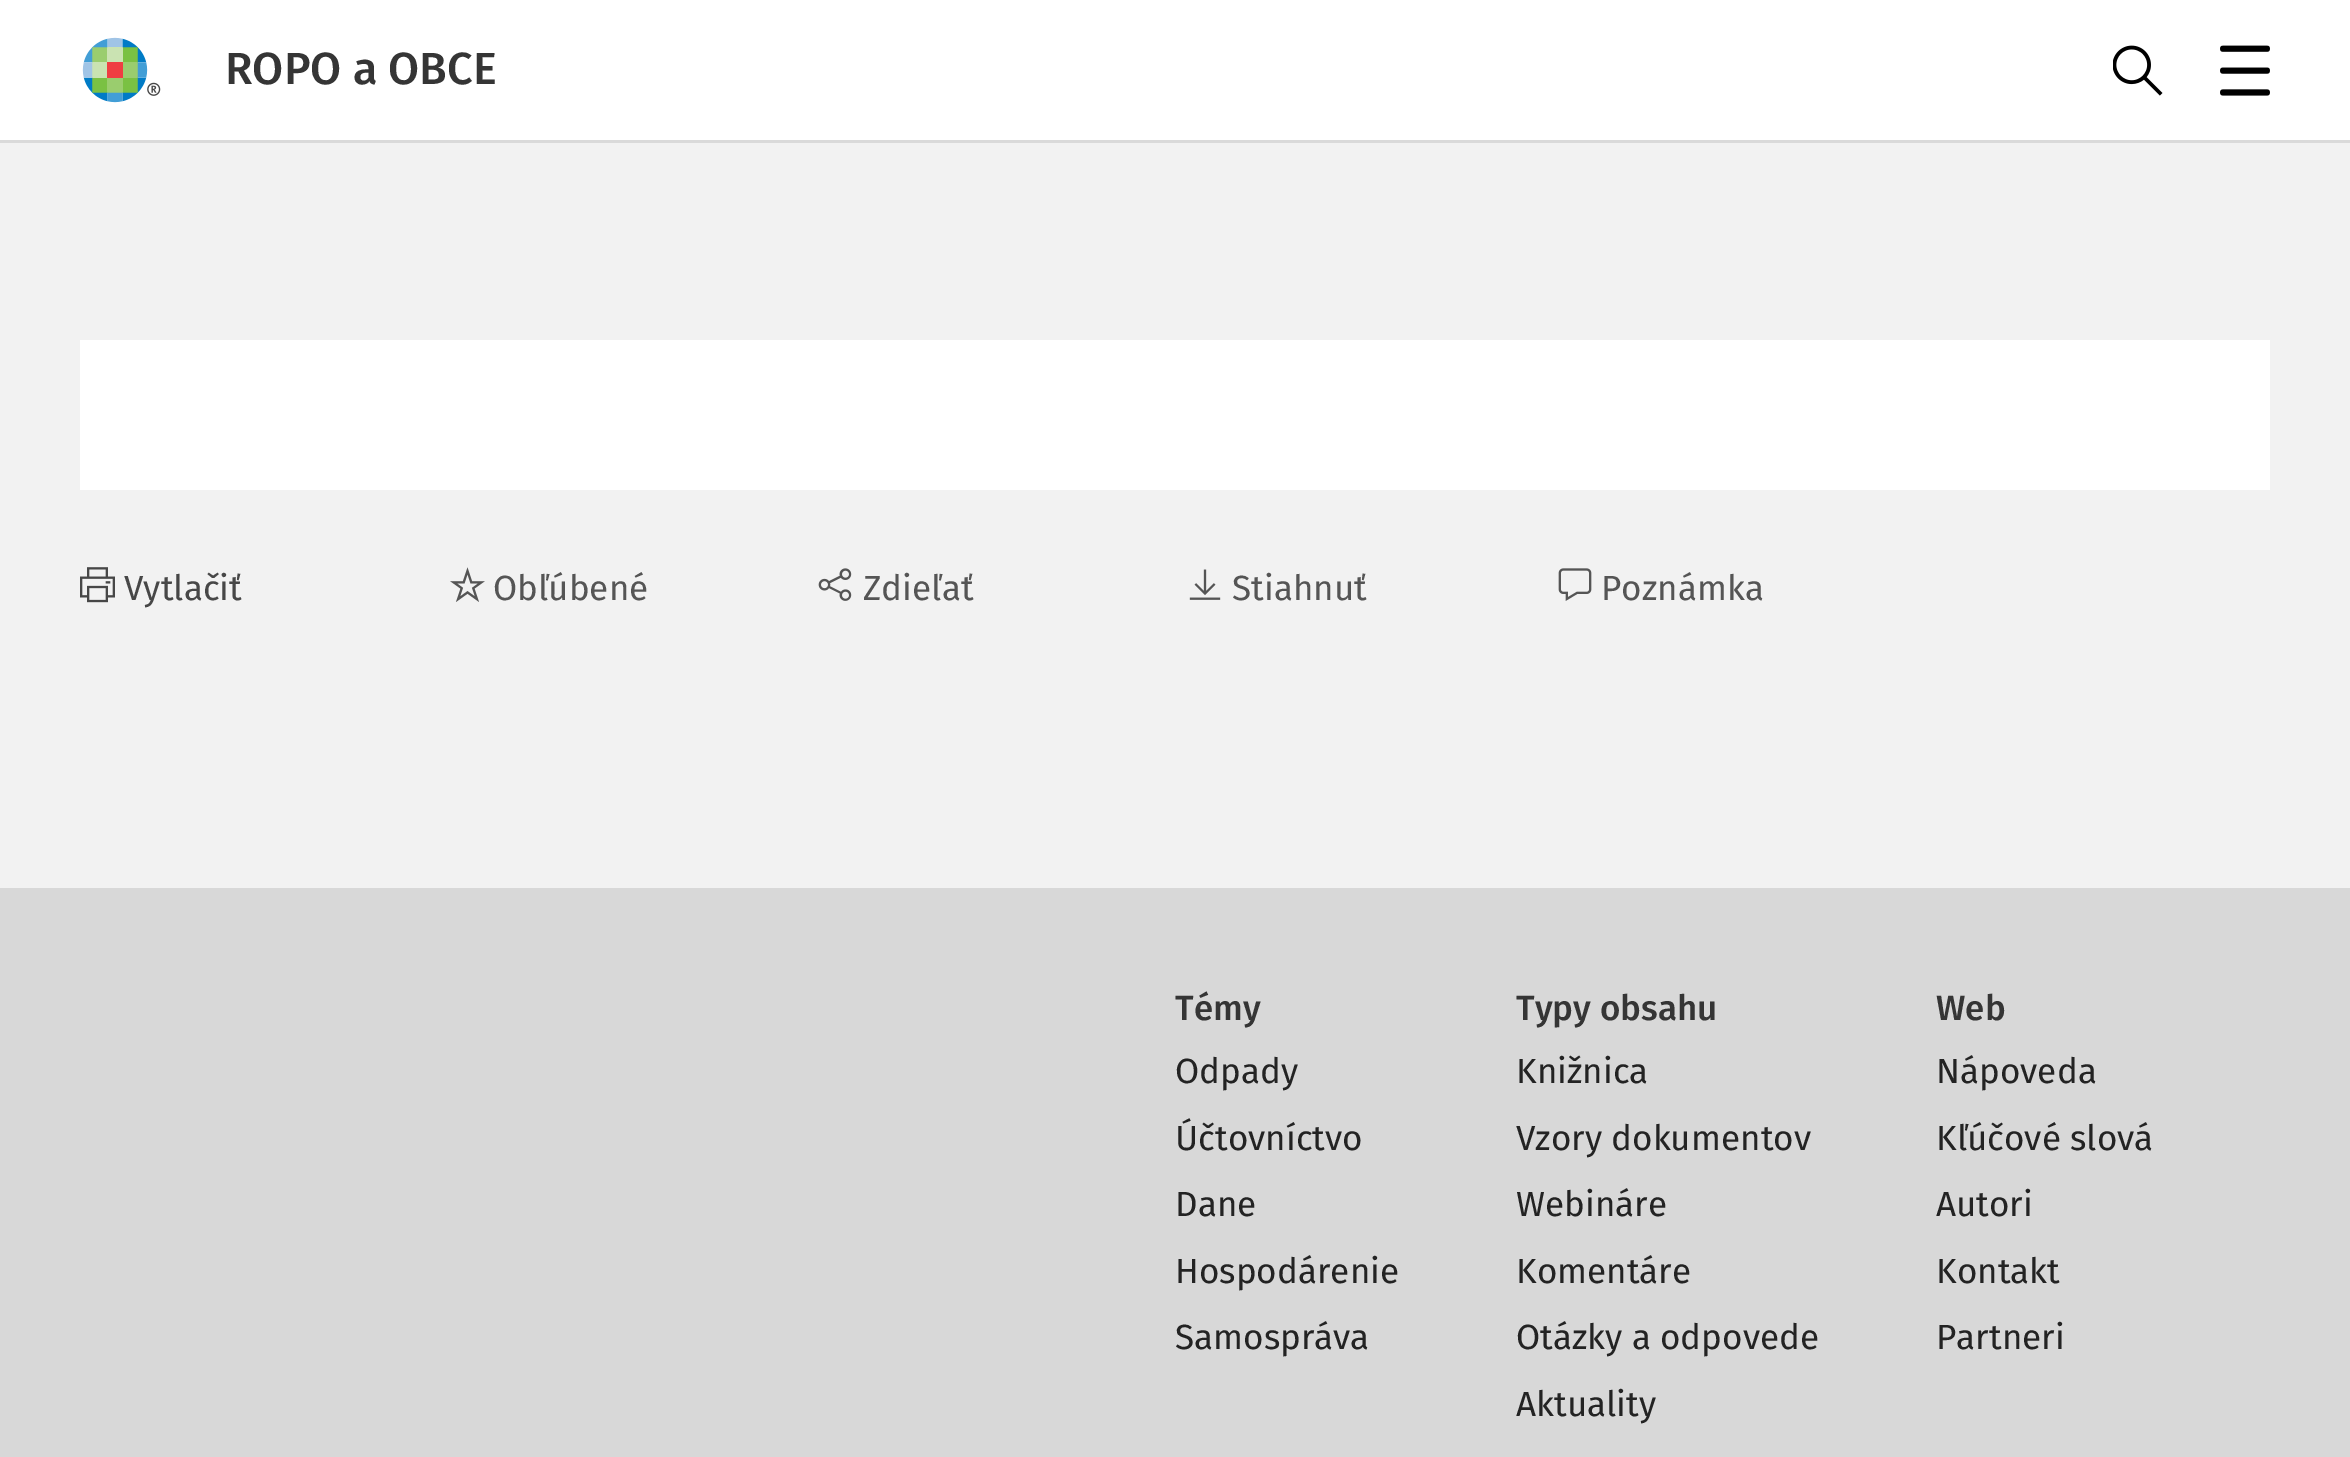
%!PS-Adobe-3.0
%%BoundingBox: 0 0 2350 1457
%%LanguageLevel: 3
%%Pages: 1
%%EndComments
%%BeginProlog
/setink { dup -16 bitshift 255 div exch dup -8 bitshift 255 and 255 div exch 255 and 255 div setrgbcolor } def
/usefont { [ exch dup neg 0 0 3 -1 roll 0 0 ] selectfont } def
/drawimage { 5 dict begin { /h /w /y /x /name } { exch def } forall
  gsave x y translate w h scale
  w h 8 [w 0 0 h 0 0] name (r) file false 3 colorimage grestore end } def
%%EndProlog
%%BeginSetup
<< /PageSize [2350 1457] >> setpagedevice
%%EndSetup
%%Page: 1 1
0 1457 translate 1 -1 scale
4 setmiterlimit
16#FFFFFF setink
0 0 2350 1457 rectfill
16#DADADA setink
0 140 2350 3 rectfill
(img1.raw) 82 37 79 66 drawimage
/FiraSans-Medium 45 usefont
16#353535 setink
225 84 moveto (ROPO a OBCE) show
(img2.raw) 2113 45 50 51 drawimage
(img3.raw) 2220 45 50 51 drawimage
16#F2F2F2 setink
0 143 2350 745 rectfill
16#FFFFFF setink
80 340 2190 150 rectfill
(img4.raw) 80 567 35 36 drawimage
/FiraSans-Regular 35 usefont
16#474747 setink
124 600 moveto (Vytlačiť) show
(img5.raw) 450 567 35 35 drawimage
16#555555 setink
493 600 moveto (Obľúbené) show
(img6.raw) 818 568 34 33 drawimage
863 600 moveto (Zdieľať) show
(img7.raw) 1189 569 32 31 drawimage
1232 600 moveto (Stiahnuť) show
(img8.raw) 1558 568 34 33 drawimage
1601 600 moveto (Poznámka) show
16#D8D8D8 setink
0 888 2350 569 rectfill
/FiraSans-Medium 35 usefont
16#353535 setink
1175 1020 moveto (Témy) show
/FiraSans-Regular 35 usefont
16#232323 setink
[
    [(Odpady) 1175 1083]
    [(Účtovníctvo) 1175 1150]
    [(Dane) 1175 1216]
    [(Hospodárenie) 1175 1283]
    [(Samospráva) 1175 1349]
] { aload pop moveto show } forall
/FiraSans-Medium 35 usefont
16#353535 setink
1516 1020 moveto (Typy obsahu) show
/FiraSans-Regular 35 usefont
16#232323 setink
[
    [(Knižnica) 1516 1083]
    [(Vzory dokumentov) 1516 1150]
    [(Webináre) 1516 1216]
    [(Komentáre) 1516 1283]
    [(Otázky a odpovede) 1516 1349]
    [(Aktuality) 1516 1416]
] { aload pop moveto show } forall
/FiraSans-Medium 35 usefont
16#353535 setink
1936 1020 moveto (Web) show
/FiraSans-Regular 35 usefont
16#232323 setink
[
    [(Nápoveda) 1936 1083]
    [(Kľúčové slová) 1936 1150]
    [(Autori) 1936 1216]
    [(Kontakt) 1936 1283]
    [(Partneri) 1936 1349]
] { aload pop moveto show } forall
showpage
%%EOF
